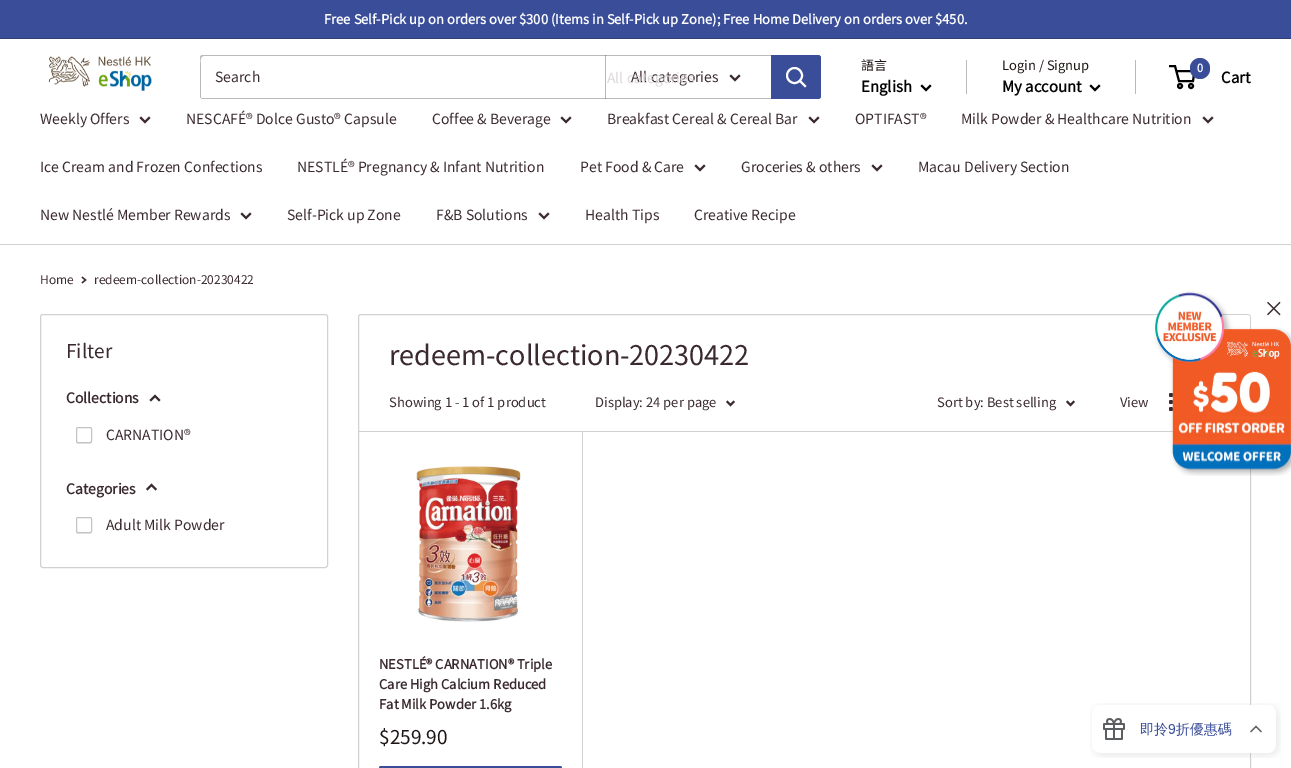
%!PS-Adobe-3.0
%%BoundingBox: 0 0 1291 768
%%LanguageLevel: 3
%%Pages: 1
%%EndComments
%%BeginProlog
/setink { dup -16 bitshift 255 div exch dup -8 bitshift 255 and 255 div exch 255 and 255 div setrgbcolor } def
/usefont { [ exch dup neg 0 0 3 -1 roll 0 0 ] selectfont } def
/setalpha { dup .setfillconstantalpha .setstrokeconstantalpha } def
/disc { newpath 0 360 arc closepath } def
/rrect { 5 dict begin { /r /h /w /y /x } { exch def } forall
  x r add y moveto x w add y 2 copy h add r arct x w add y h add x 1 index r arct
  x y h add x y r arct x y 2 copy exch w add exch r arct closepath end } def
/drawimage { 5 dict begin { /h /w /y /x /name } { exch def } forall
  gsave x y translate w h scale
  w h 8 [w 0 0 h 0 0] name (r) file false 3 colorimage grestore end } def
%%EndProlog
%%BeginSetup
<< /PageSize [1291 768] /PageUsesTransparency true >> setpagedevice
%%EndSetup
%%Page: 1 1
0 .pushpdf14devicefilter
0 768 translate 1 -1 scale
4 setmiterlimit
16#FFFFFF setink
0 0 1291 768 rectfill
16#394D99 setink
0 0 1291 38 rectfill
16#313C72 setink
0 38 1291 1 rectfill
/NotoSansTC-Bold 13 usefont
16#FFFFFF setink
324 24 moveto (Free Self-Pick up on orders over $300 \(Items in Self-Pick up Zone\); Free Home Delivery on orders over $450.) show
(img1.raw) 49 56 103 35 drawimage
16#BCB9B9 setink
201 98 moveto 201 99 202 99 203 99 curveto 818 99 lineto 820 99 821 98 821 96 curveto 821 58 lineto 821 57 821 56 820 56 curveto 820 89 lineto 820 91 822 98 817 98 curveto closepath fill
204 56 moveto 820 56 lineto 820 55 819 55 818 55 curveto 203 55 lineto 201 55 200 56 200 58 curveto 200 96 lineto 200 97 200 98 201 98 curveto 201 65 lineto 201 63 199 56 204 56 curveto closepath fill
/NotoSansTC-Regular 14 usefont
16#3A2A2F setink
215 82 moveto (Search) show
0.3 setalpha
16#1E1616 setink
605 55 1 44 rectfill
1 setalpha
16#3A2A2F setink
631 82 moveto (All categories) show
2 setlinewidth
2 setlinecap
739 76 moveto 735 80 lineto 731 76 lineto stroke
16#DBD8D9 setink
607 83 moveto (All categories) show
16#394D99 setink
771 55 moveto 818 55 lineto 819.5 55 821 56.5 821 58 curveto 821 96 lineto 821 97.5 819.5 99 818 99 curveto 771 99 lineto closepath fill
16#FFFFFF setink
805 86 moveto 800 81 lineto stroke
0 setlinecap
794.5 75.5 7.5 disc stroke
/NotoSansTC-Regular 13 usefont
16#1E1616 setink
861 70 moveto (語言) show
/NotoSansTC-Bold 15 usefont
16#000000 setink
861 92 moveto (English) show
2 setlinecap
930 86 moveto 926 90 lineto 922 86 lineto stroke
16#BCB9B9 setink
966 60 1 34 rectfill
/NotoSansTC-Regular 13 usefont
16#1E1616 setink
1002 70 moveto (Login / Signup) show
16#BCB9B9 setink
1135 60 1 34 rectfill
/NotoSansTC-Bold 15 usefont
16#000000 setink
1002 92 moveto (My account) show
1099 86 moveto 1095 90 lineto 1091 86 lineto stroke
0 setlinecap
1180 86 2 disc stroke
1191 86 2 disc stroke
1176.5 71 moveto 1194.5 71 lineto 1193 81 lineto 1179 81 lineto 1175 66 lineto 1169 66 lineto stroke
16#394D99 setink
1190 58 20 21 10 rrect fill
/NotoSansTC-Bold 11 usefont
16#FFFFFF setink
1197 72 moveto (0) show
/NotoSansTC-Bold 15 usefont
16#000000 setink
1221 83 moveto (Cart) show
16#D1D1D4 setink
0 244 1291 1 rectfill
/NotoSansTC-Regular 14 usefont
16#3A2A2F setink
40 124 moveto (Weekly Offers) show
2 setlinecap
149 118 moveto 145 122 lineto 141 118 lineto stroke
186 124 moveto (NESCAFÉ® Dolce Gusto® Capsule) show
432 124 moveto (Coffee & Beverage) show
570 118 moveto 566 122 lineto 562 118 lineto stroke
607 124 moveto (Breakfast Cereal & Cereal Bar) show
818 118 moveto 814 122 lineto 810 118 lineto stroke
855 124 moveto (OPTIFAST®) show
961 124 moveto (Milk Powder & Healthcare Nutrition) show
1212 118 moveto 1208 122 lineto 1204 118 lineto stroke
[
    [(Ice Cream and Frozen Confections) 40 172]
    [(NESTLÉ® Pregnancy & Infant Nutrition) 297 172]
    [(Pet Food & Care) 580 172]
] { aload pop moveto show } forall
704 166 moveto 700 170 lineto 696 166 lineto stroke
741 172 moveto (Groceries & others) show
881 166 moveto 877 170 lineto 873 166 lineto stroke
918 172 moveto (Macau Delivery Section) show
40 220 moveto (New Nestlé Member Rewards) show
250 214 moveto 246 218 lineto 242 214 lineto stroke
287 220 moveto (Self-Pick up Zone) show
436 220 moveto (F&B Solutions) show
548 214 moveto 544 218 lineto 540 214 lineto stroke
585 220 moveto (Health Tips) show
694 220 moveto (Creative Recipe) show
/NotoSansTC-Regular 12 usefont
40 284 moveto (Home) show
1.3 setlinewidth
82.5 277.5 moveto 85.5 280 lineto 82.5 282.5 lineto stroke
94 284 moveto (redeem-collection-20230422) show
16#D1D1D4 setink
1 setlinewidth
0 setlinecap
40.5 314.5 287 253 2.5 rrect stroke
/NotoSansTC-Regular 19 usefont
16#3A2A2F setink
66 358 moveto (Filter) show
/NotoSansTC-Bold 14 usefont
66 403 moveto (Collections) show
2 setlinewidth
2 setlinecap
151 400 moveto 155 396 lineto 159 400 lineto stroke
16#E7E7E9 setink
76 441 moveto 76 444 77 444 80 444 curveto 88 444 lineto 91 444 92 444 92 441 curveto 92 442 91 443 90 443 curveto 78 443 lineto 77 443 76 442 76 441 curveto closepath fill
16#FFFFFF setink
76.5 427.5 15 15 1.5 rrect gsave fill grestore
16#C4C4C8 setink
1 setlinewidth
0 setlinecap
stroke
/NotoSansTC-Regular 14 usefont
16#3A2A2F setink
106 440 moveto (CARNATION®) show
/NotoSansTC-Bold 14 usefont
66 494 moveto (Categories) show
2 setlinewidth
2 setlinecap
147.5 489 moveto 151.5 485 lineto 155.5 489 lineto stroke
16#E7E7E9 setink
76 531 moveto 76 534 77 534 80 534 curveto 88 534 lineto 91 534 92 534 92 531 curveto 92 532 91 533 90 533 curveto 78 533 lineto 77 533 76 532 76 531 curveto closepath fill
16#FFFFFF setink
76.5 517.5 15 15 1.5 rrect gsave fill grestore
16#C4C4C8 setink
1 setlinewidth
0 setlinecap
stroke
/NotoSansTC-Regular 14 usefont
16#3A2A2F setink
106 530 moveto (Adult Milk Powder) show
16#D1D1D4 setink
358.5 314.5 892 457 2.5 rrect stroke
/NotoSansTC-Regular 27 usefont
16#3A2A2F setink
389 365 moveto (redeem-collection-20230422) show
16#D1D1D4 setink
582 431 1 337 rectfill
359 431 815 1 rectfill
/NotoSansTC-Regular 13 usefont
16#3A2A2F setink
389 407 moveto (Showing 1 - 1 of 1 product) show
595 407 moveto (Display: 24 per page) show
1.9 setlinewidth
2 setlinecap
733.5 402 moveto 730.5 405 lineto 727.5 402 lineto stroke
937 407 moveto (Sort by: Best selling) show
1073.5 402 moveto 1070.5 405 lineto 1067.5 402 lineto stroke
1120 407 moveto (View) show
(img2.raw) 1169 393 4 18 drawimage
(img3.raw) 416 466 105 156 drawimage
/NotoSansTC-Bold 13 usefont
[
    [(NESTLÉ® CARNATION® Triple) 379 669]
    [(Care High Calcium Reduced) 379 689]
    [(Fat Milk Powder 1.6kg) 379 709]
] { aload pop moveto show } forall
/NotoSansTC-Regular 19 usefont
16#1E1616 setink
379 744 moveto ($259.90) show
16#394D99 setink
379 766 183 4 2 rrect fill
(img4.raw) 1154 291 137 185 drawimage
(img5.raw) 1267 301 14 15 drawimage
(img6.raw) 1090 703 191 55 drawimage
.poppdf14devicefilter showpage
%%EOF
